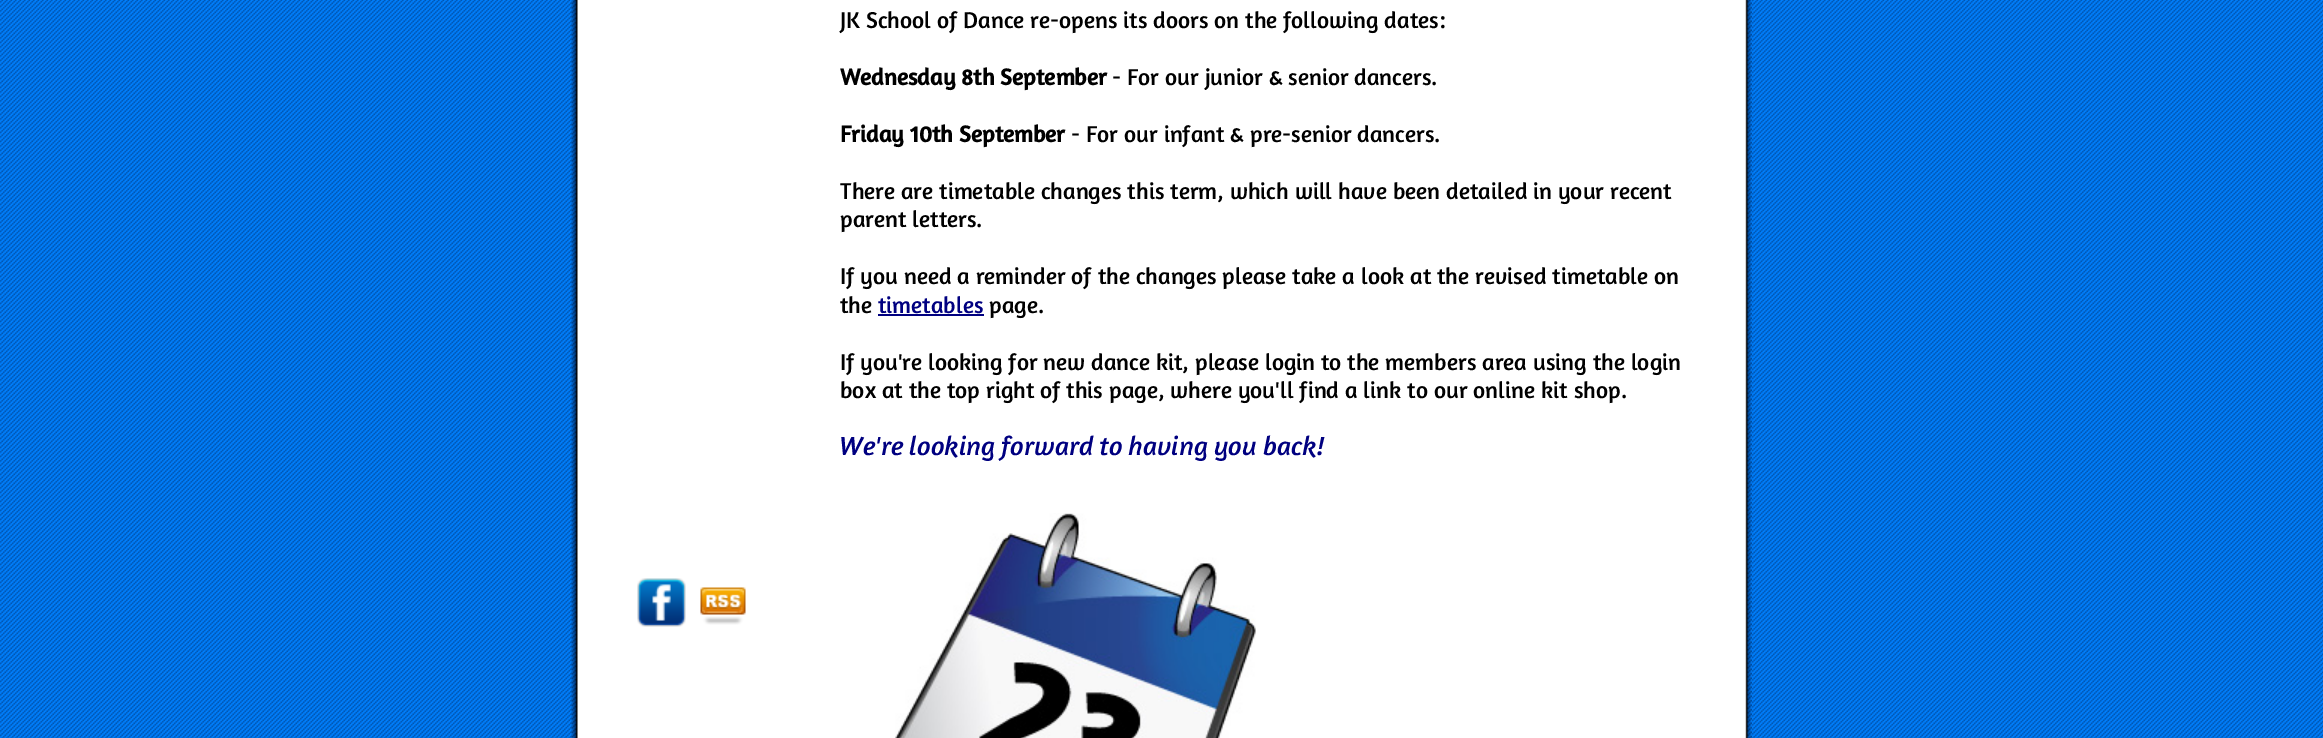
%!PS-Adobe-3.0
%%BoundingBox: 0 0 2323 738
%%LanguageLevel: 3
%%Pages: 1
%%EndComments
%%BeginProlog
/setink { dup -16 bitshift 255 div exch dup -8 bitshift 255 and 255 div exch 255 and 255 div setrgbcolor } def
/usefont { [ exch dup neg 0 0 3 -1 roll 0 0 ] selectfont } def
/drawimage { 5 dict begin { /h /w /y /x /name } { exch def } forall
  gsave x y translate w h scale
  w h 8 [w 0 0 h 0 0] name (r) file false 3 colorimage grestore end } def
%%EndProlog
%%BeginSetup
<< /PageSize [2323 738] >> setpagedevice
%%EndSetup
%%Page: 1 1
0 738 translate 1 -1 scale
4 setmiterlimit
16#FFFFFF setink
0 0 2323 738 rectfill
(img1.raw) 0 0 2323 738 drawimage
(img2.raw) 571 0 1181 738 drawimage
/Amaranth-Regular 23.4 usefont
16#000000 setink
840 28 moveto (JK School of Dance re-opens its doors on the following dates:) show
/Amaranth-Bold 23.4 usefont
840 85 moveto (Wednesday 8th September) show
/Amaranth-Regular 23.4 usefont
1112 85 moveto (- For our junior & senior dancers.) show
/Amaranth-Bold 23.4 usefont
840 142 moveto (Friday 10th September) show
/Amaranth-Regular 23.4 usefont
[
    [(- For our infant & pre-senior dancers.) 1071 142]
    [(There are timetable changes this term, which will have been detailed in your recent) 840 199]
    [(parent letters.) 840 227]
    [(If you need a reminder of the changes please take a look at the revised timetable on) 840 284]
    [(the) 840 313]
] { aload pop moveto show } forall
16#000080 setink
878 313 moveto (timetables) show
878 314 106 2 rectfill
16#000000 setink
[
    [(page.) 989 313]
    [(If you're looking for new dance kit, please login to the members area using the login) 840 370]
    [(box at the top right of this page, where you'll find a link to our online kit shop.) 840 398]
] { aload pop moveto show } forall
/Amaranth-Italic 27 usefont
16#000080 setink
840 455 moveto (We're looking forward to having you back!) show
(img3.raw) 895 513 361 225 drawimage
(img4.raw) 637 578 49 49 drawimage
(img5.raw) 700 587 46 38 drawimage
showpage
%%EOF
